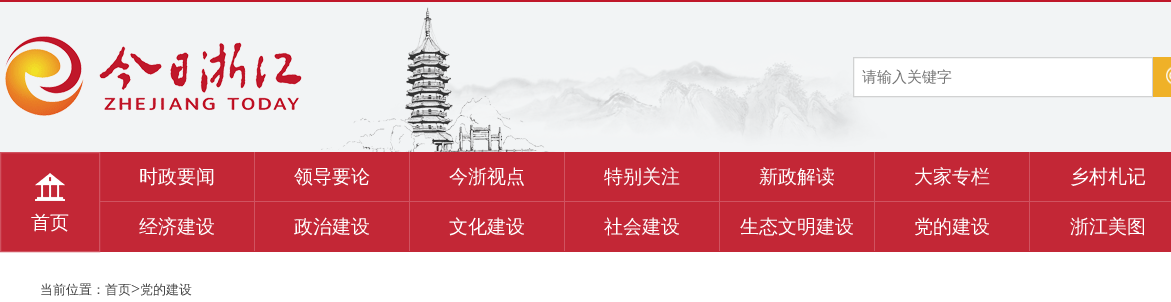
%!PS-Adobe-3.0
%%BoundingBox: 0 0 1171 302
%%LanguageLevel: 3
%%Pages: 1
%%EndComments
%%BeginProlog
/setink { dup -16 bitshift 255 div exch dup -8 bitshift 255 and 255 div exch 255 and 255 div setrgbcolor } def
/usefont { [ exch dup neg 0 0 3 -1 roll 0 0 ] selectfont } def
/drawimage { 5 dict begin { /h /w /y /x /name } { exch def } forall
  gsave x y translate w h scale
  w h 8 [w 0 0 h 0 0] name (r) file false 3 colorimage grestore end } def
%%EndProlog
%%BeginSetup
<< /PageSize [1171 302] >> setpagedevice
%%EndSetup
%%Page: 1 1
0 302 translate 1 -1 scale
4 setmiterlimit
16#FFFFFF setink
0 0 1171 302 rectfill
(img1.raw) 0 0 1171 152 drawimage
853.5 57.5 moveto 1152.5 57.5 lineto 1152.5 96.5 lineto 853.5 96.5 lineto closepath gsave fill grestore
16#D1D2D2 setink
stroke
/WenQuanYiZenHei-Medium 15 usefont
16#757575 setink
862 82 moveto (请输入关键字) show
(img2.raw) 1153 57 18 40 drawimage
[
    [1 152 1170 100 16#C32736]
    [100 201 1071 1 16#D05360]
    [254 152 1 99 16#D05360]
] { aload pop setink rectfill } forall
/WenQuanYiZenHei-Medium 19 usefont
16#FFFFFF setink
139 183 moveto (时政要闻) show
16#D05360 setink
409 152 1 99 rectfill
16#FFFFFF setink
294 183 moveto (领导要论) show
16#D05360 setink
564 152 1 99 rectfill
16#FFFFFF setink
449 183 moveto (今浙视点) show
16#D05360 setink
719 152 1 99 rectfill
16#FFFFFF setink
604 183 moveto (特别关注) show
16#D05360 setink
874 152 1 99 rectfill
16#FFFFFF setink
759 183 moveto (新政解读) show
16#D05360 setink
1029 152 1 99 rectfill
16#FFFFFF setink
914 183 moveto (大家专栏) show
1070 183 moveto (乡村札记) show
(img3.raw) 35 173 30 28 drawimage
16#D05360 setink
0.5 152.5 99 99 rectstroke
16#FFFFFF setink
[
    [(首页) 31 229]
    [(经济建设) 139 233]
    [(政治建设) 294 233]
    [(文化建设) 449 233]
    [(社会建设) 604 233]
    [(生态文明建设) 740 233]
    [(党的建设) 914 233]
    [(浙江美图) 1070 233]
] { aload pop moveto show } forall
/WenQuanYiZenHei-Medium 13 usefont
16#454545 setink
40 294 moveto (当前位置：首页) show
/LiberationSerif-Regular 16 usefont
16#333333 setink
131 294 moveto (>) show
/WenQuanYiZenHei-Medium 13 usefont
16#454545 setink
140 294 moveto (党的建设) show
showpage
%%EOF
